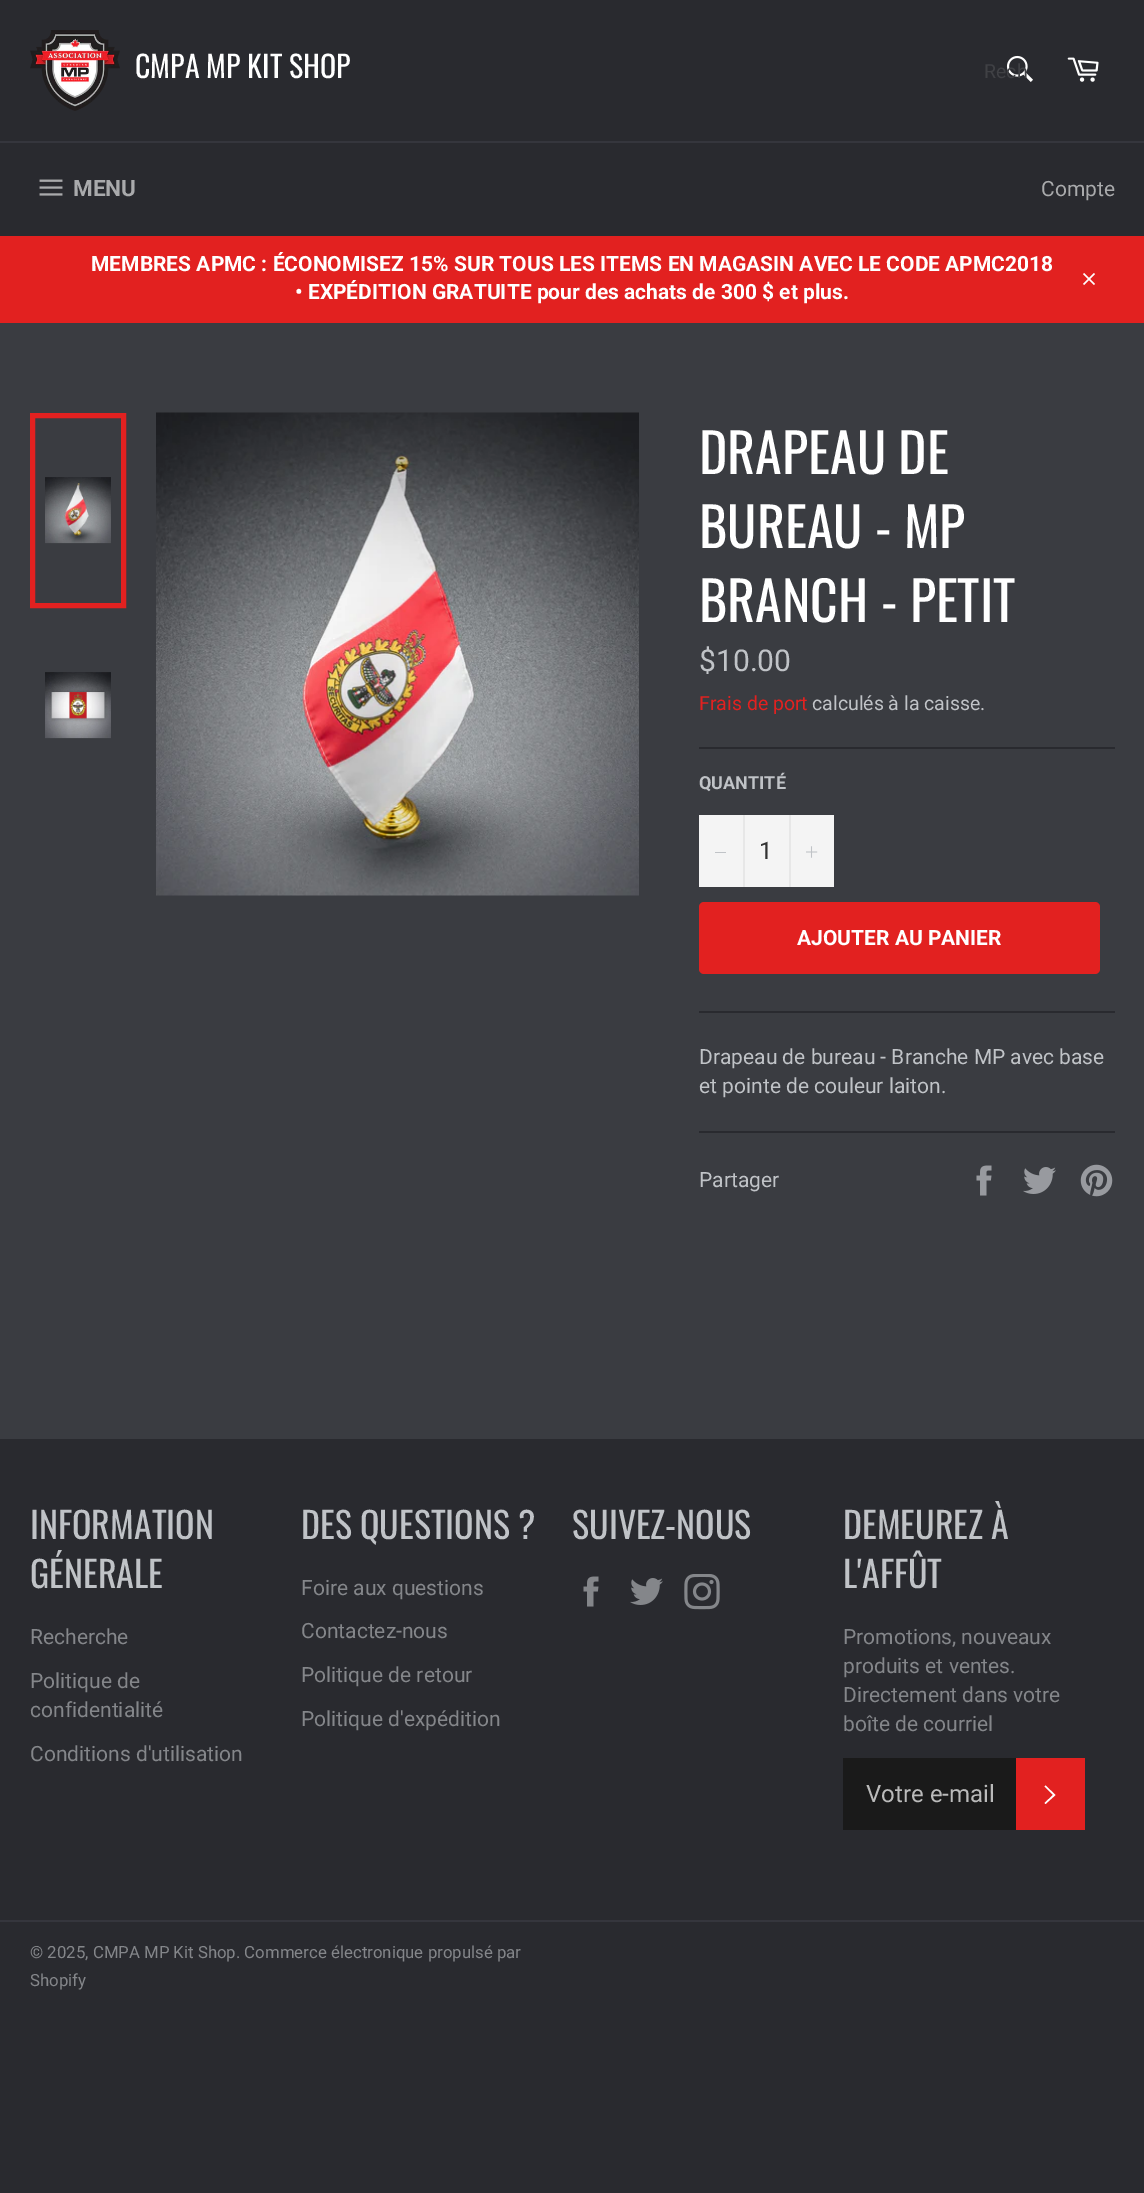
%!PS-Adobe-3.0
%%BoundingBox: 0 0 1144 2193
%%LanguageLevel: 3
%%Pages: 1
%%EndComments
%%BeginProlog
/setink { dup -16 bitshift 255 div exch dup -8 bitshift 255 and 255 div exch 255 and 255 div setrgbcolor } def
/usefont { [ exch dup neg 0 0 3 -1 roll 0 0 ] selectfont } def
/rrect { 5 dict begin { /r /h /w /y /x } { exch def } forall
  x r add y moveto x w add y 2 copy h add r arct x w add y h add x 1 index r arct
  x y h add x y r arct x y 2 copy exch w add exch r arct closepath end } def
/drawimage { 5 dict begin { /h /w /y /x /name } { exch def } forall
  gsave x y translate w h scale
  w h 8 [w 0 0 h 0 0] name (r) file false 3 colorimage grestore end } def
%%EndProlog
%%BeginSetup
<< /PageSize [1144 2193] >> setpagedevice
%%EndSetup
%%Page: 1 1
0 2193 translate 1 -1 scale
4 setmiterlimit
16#292A2F setink
0 0 1144 2193 rectfill
(img1.raw) 30 30 90 81 drawimage
/Oswald-Regular 30 usefont
16#FFFFFF setink
135 78 moveto (CMPA MP KIT SHOP) show
(img2.raw) 1006 55 27 27 drawimage
/Roboto-Regular 19.5 usefont
16#404145 setink
984 78 moveto (Rech) show
(img3.raw) 1067 57 32 25 drawimage
16#35363D setink
0 141 1144 2 rectfill
(img4.raw) 39 179 24 17 drawimage
/Roboto-Bold 22.5 usefont
16#A9AAAC setink
73 196 moveto (MENU) show
/Roboto-Regular 21 usefont
1041 196 moveto (Compte) show
16#E22120 setink
0 236 1144 87 rectfill
/Roboto-Bold 21 usefont
16#FFFFFF setink
91 271 moveto (MEMBRES APMC : ÉCONOMISEZ 15% SUR TOUS LES ITEMS EN MAGASIN AVEC LE CODE APMC2018) show
295 299 moveto (• EXPÉDITION GRATUITE pour des achats de 300 $ et plus.) show
(img5.raw) 1083 273 12 12 drawimage
16#3A3C41 setink
0 323 1144 1116 rectfill
(img6.raw) 45 477 66 67 drawimage
16#E22120 setink
5 setlinewidth
32.5 415.5 91 190 rectstroke
(img7.raw) 45 672 66 67 drawimage
(img8.raw) 156 412 483 484 drawimage
/Oswald-Regular 54 usefont
16#FFFFFF setink
[
    [(DRAPEAU DE) 699 474]
    [(BUREAU - MP) 699 548]
    [(BRANCH - PETIT) 699 622]
] { aload pop moveto show } forall
/Roboto-Regular 30 usefont
16#C0C3C7 setink
699 671 moveto ($10.00) show
/Roboto-Regular 19.5 usefont
16#E22120 setink
699 710 moveto (Frais de port) show
16#C0C3C7 setink
812 710 moveto (calculés à la caisse.) show
16#292A2F setink
699 747 416 2 rectfill
/Roboto-Bold 18 usefont
16#C0C3C7 setink
699 789 moveto (QUANTITÉ) show
[
    [699 815 135 72 16#F4F4F4]
    [743 815 2 72 16#E7E7E7]
    [715 852 11 1 16#C0C3C7]
] { aload pop setink rectfill } forall
/Roboto-Regular 24 usefont
16#333333 setink
759 859 moveto (1) show
16#E7E7E7 setink
789 815 2 72 rectfill
(img9.raw) 806 846 12 12 drawimage
16#E22120 setink
699 902 401 72 5 rrect fill
/Roboto-Bold 21 usefont
16#FFFFFF setink
797 945 moveto (AJOUTER AU PANIER) show
16#292A2F setink
699 1011 416 2 rectfill
/Roboto-Regular 21 usefont
16#C0C3C7 setink
699 1064 moveto (Drapeau de bureau - Branche MP avec base) show
699 1093 moveto (et pointe de couleur laiton.) show
16#292A2F setink
699 1131 416 2 rectfill
16#C0C3C7 setink
699 1187 moveto (Partager) show
(img10.raw) 976 1165 16 31 drawimage
(img11.raw) 1023 1167 33 27 drawimage
(img12.raw) 1080 1164 33 33 drawimage
/Oswald-Regular 36 usefont
30 1539 moveto (INFORMATION) show
30 1588 moveto (GÉNERALE) show
/Roboto-Regular 21 usefont
16#84868A setink
[
    [(Recherche) 30 1644]
    [(Politique de) 30 1688]
    [(confidentialité) 30 1717]
    [(Conditions d'utilisation) 30 1761]
] { aload pop moveto show } forall
/Oswald-Regular 36 usefont
16#C0C3C7 setink
301 1539 moveto (DES QUESTIONS ?) show
/Roboto-Regular 21 usefont
16#84868A setink
[
    [(Foire aux questions) 301 1595]
    [(Contactez-nous) 301 1638]
    [(Politique de retour) 301 1682]
    [(Politique d'expédition) 301 1726]
] { aload pop moveto show } forall
/Oswald-Regular 36 usefont
16#C0C3C7 setink
572 1539 moveto (SUIVEZ-NOUS) show
(img13.raw) 583 1576 16 31 drawimage
(img14.raw) 630 1578 33 27 drawimage
(img15.raw) 684 1574 36 36 drawimage
843 1539 moveto (DEMEUREZ À) show
843 1588 moveto (L'AFFÛT) show
/Roboto-Regular 21 usefont
16#84868A setink
[
    [(Promotions, nouveaux) 843 1644]
    [(produits et ventes.) 843 1673]
    [(Directement dans votre) 843 1702]
    [(boîte de courriel) 843 1731]
] { aload pop moveto show } forall
16#1A1A1A setink
843 1758 173 72 rectfill
/Roboto-Regular 24 usefont
16#BABABA setink
866 1802 moveto (Votre e-mail) show
16#E22120 setink
1016 1758 69 72 rectfill
16#FFFFFF setink
1044.5 1786.5 moveto 1045.5 1785.5 lineto 1055.5 1795 lineto 1045.5 1804 lineto 1044.5 1803 lineto 1053 1795 lineto closepath fill
16#35363D setink
0 1920 1144 2 rectfill
/Roboto-Regular 16.8 usefont
16#84868A setink
30 1958 moveto (© 2025, CMPA MP Kit Shop. Commerce électronique propulsé par) show
30 1986 moveto (Shopify) show
showpage
%%EOF
